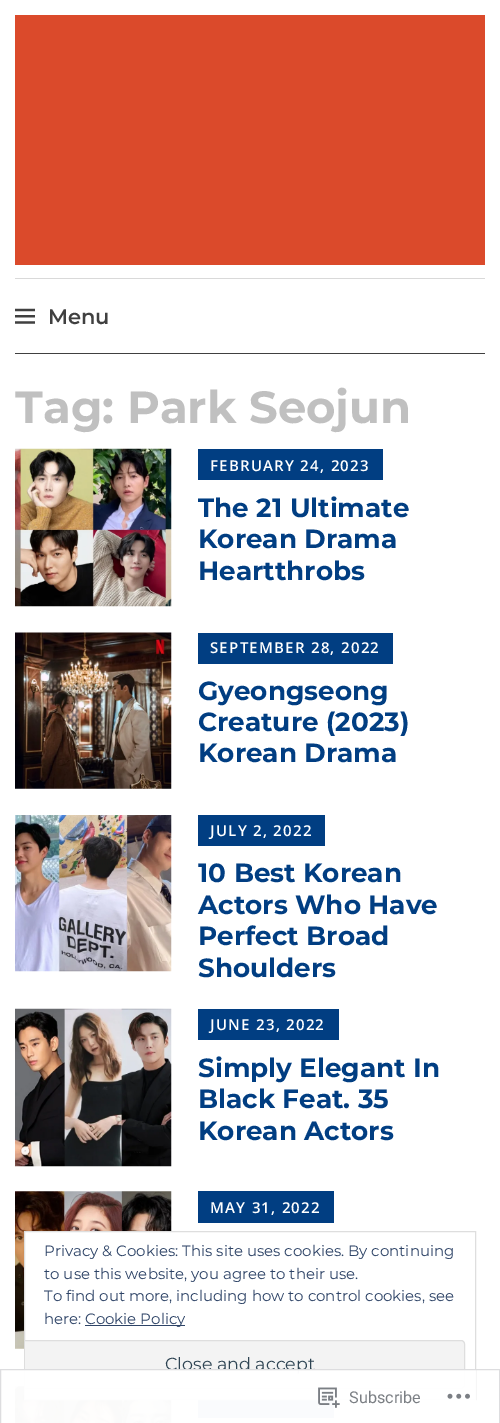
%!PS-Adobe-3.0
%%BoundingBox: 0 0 500 1423
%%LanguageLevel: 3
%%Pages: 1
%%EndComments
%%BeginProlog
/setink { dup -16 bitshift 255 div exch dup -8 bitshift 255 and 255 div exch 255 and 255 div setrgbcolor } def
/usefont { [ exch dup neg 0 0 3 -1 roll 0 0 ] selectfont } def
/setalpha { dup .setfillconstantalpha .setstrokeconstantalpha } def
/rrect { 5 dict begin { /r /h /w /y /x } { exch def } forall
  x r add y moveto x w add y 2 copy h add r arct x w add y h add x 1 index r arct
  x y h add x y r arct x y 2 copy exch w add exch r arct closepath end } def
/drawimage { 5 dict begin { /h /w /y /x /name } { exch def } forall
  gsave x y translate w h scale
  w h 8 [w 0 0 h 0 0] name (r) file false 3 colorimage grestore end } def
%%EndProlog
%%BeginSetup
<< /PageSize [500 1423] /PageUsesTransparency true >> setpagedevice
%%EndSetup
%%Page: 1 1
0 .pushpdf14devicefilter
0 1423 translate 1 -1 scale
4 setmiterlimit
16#FFFFFF setink
0 0 500 1423 rectfill
[
    [15 15 470 250 16#DB4A2B]
    [15 278 470 1 16#D9D9D9]
    [15 353 470 1 16#404040]
] { aload pop setink rectfill } forall
(img1.raw) 15 308 20 16 drawimage
/Montserrat-SemiBold 21 usefont
48 324 moveto (Menu) show
/Montserrat-Bold 45 usefont
16#C0C0C0 setink
15 423 moveto (Tag: Park Seojun) show
(img2.raw) 15 448 157 159 drawimage
16#013E82 setink
198 449 185 31 rectfill
/OpenSans-SemiBold 15 usefont
16#FFFFFF setink
210 471 moveto 1.25 0 (FEBRUARY 24, 2023) ashow
/Montserrat-Bold 26.25 usefont
16#013E82 setink
[
    [(The 21 Ultimate) 198 517]
    [(Korean Drama) 198 548]
    [(Heartthrobs) 198 580]
] { aload pop moveto show } forall
(img3.raw) 15 632 157 157 drawimage
198 633 195 31 rectfill
/OpenSans-SemiBold 15 usefont
16#FFFFFF setink
210 653 moveto 1.25 0 (SEPTEMBER 28, 2022) ashow
/Montserrat-Bold 26.25 usefont
16#013E82 setink
[
    [(Gyeongseong) 198 700]
    [(Creature \(2023\)) 198 731]
    [(Korean Drama) 198 762]
] { aload pop moveto show } forall
(img4.raw) 15 815 157 157 drawimage
198 815 127 31 rectfill
/OpenSans-SemiBold 15 usefont
16#FFFFFF setink
210 836 moveto 1.25 0 (JULY 2, 2022) ashow
/Montserrat-Bold 26.25 usefont
16#013E82 setink
[
    [(10 Best Korean) 198 882]
    [(Actors Who Have) 198 914]
    [(Perfect Broad) 198 945]
    [(Shoulders) 198 977]
] { aload pop moveto show } forall
(img5.raw) 15 1008 157 159 drawimage
198 1009 141 31 rectfill
/OpenSans-SemiBold 15 usefont
16#FFFFFF setink
210 1030 moveto 1.25 0 (JUNE 23, 2022) ashow
/Montserrat-Bold 26.25 usefont
16#013E82 setink
[
    [(Simply Elegant In) 198 1077]
    [(Black Feat. 35) 198 1108]
    [(Korean Actors) 198 1140]
] { aload pop moveto show } forall
(img6.raw) 15 1191 157 158 drawimage
198 1191 136 32 rectfill
/OpenSans-SemiBold 15 usefont
16#FFFFFF setink
210 1213 moveto 1.25 0 (MAY 31, 2022) ashow
(img7.raw) 15 1386 157 37 drawimage
16#013E82 setink
198 1400 136 18 rectfill
16#FFFFFF setink
25 1232 147 167 rectfill
16#DEDEDE setink
24.5 1231.5 451 168 rectstroke
/Montserrat-Regular 15 usefont
16#2E4467 setink
[
    [(Privacy & Cookies: This site uses cookies. By continuing) 44 1256]
    [(to use this website, you agree to their use.) 44 1279]
    [(To find out more, including how to control cookies, see) 44 1301]
    [(here:) 44 1324]
] { aload pop moveto show } forall
85 1325 100 1 rectfill
85 1324 moveto (Cookie Policy) show
16#F3F3F3 setink
25 1340 moveto 461 1340 lineto 463 1340 465 1342 465 1344 curveto 465 1385 lineto 465 1387 463 1389 461 1389 curveto 25 1389 lineto closepath fill
gsave
25 1233 450 166 rectclip
16#DEDEDE setink
15.5 1340.5 449 48 3.5 rrect stroke
grestore
/Montserrat-Regular 17.5 usefont
16#2E4453 setink
165 1370 moveto (Close and accept) show
0.98 setalpha
16#FFFFFF setink
15 1369 461 54 rectfill
16#DCDCDE setink
0.5 1369.5 499 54 rectstroke
1 setalpha
(img8.raw) 318 1387 22 21 drawimage
/Roboto-Regular 16.25 usefont
16#7B7F84 setink
349 1403 moveto (Subscribe) show
(img9.raw) 447 1393 23 6 drawimage
.poppdf14devicefilter showpage
%%EOF
